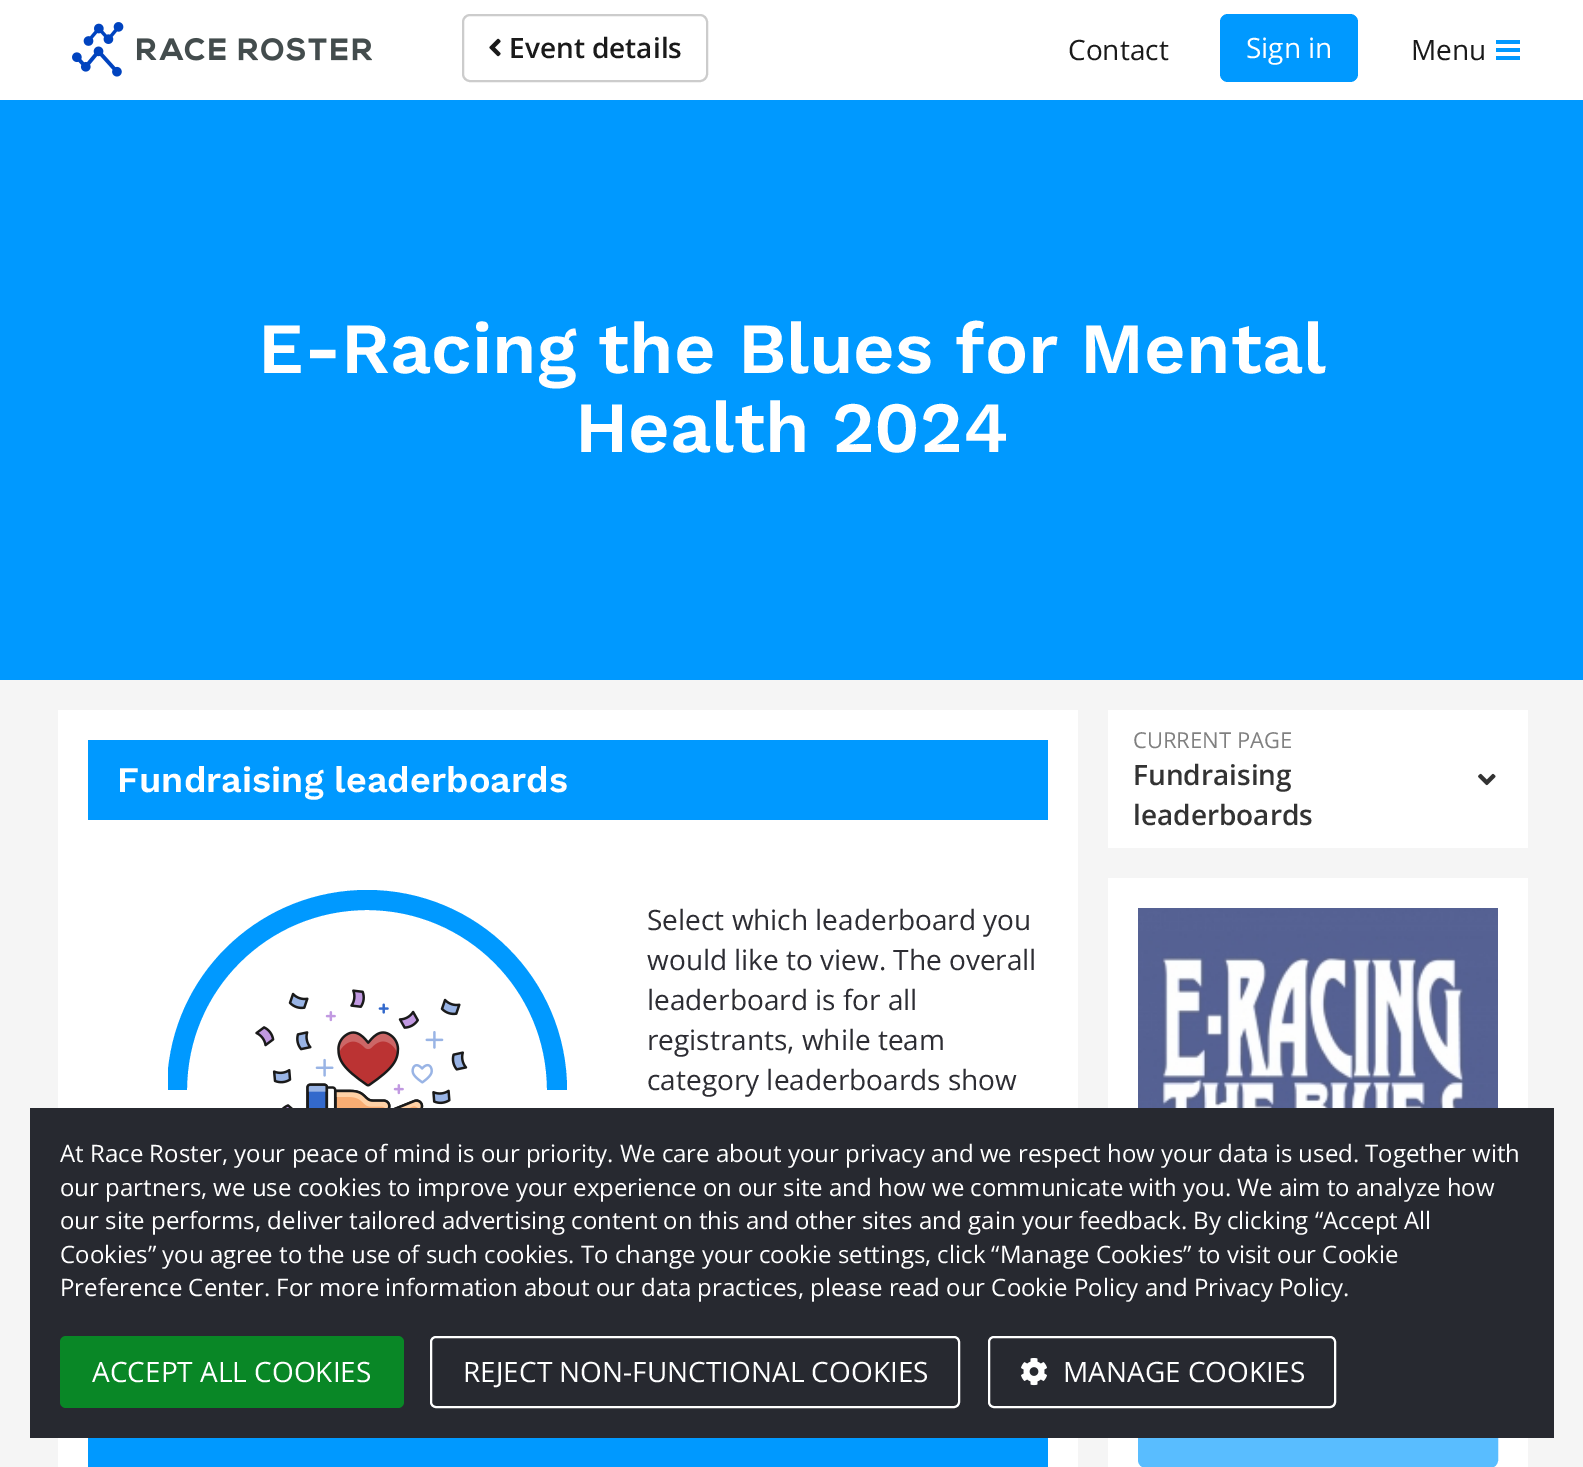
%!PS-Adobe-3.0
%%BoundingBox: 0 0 1583 1467
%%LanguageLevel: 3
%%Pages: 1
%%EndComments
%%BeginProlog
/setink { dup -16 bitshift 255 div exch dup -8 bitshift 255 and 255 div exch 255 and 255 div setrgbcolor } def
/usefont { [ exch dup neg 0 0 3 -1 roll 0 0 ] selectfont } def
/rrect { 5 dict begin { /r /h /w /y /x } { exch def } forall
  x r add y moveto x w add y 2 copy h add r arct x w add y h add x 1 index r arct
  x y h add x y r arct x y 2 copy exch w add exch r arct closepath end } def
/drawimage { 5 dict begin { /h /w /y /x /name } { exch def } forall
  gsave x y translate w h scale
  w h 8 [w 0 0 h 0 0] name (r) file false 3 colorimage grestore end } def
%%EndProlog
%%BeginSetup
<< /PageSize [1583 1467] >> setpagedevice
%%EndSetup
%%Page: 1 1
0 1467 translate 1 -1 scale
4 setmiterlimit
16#F5F5F5 setink
0 0 1583 1467 rectfill
16#FFFFFF setink
0 0 1583 100 rectfill
(img1.raw) 72 22 300 55 drawimage
16#CCCCCC setink
2 setlinewidth
463 15 244 66 7 rrect stroke
(img2.raw) 489 38 12 19 drawimage
/OpenSans-SemiBold 28 usefont
16#1A1A1A setink
509 58 moveto (Event details) show
/OpenSans-Regular 28 usefont
1068 60 moveto (Contact) show
16#0099FF setink
1220 14 138 68 8 rrect fill
16#FFFFFF setink
1246 58 moveto (Sign in) show
16#1A1A1A setink
1411 60 moveto (Menu) show
[
    [1496 40 24 4 16#0099FF]
    [1496 48 24 4 16#0099FF]
    [1496 56 24 4 16#0099FF]
    [0 100 1583 580 16#0099FF]
] { aload pop setink rectfill } forall
/WorkSans-SemiBold 72 usefont
16#FFFFFF setink
258 373 moveto (E-Racing the Blues for Mental) show
575 452 moveto (Health 2024) show
58 710 1020 757 rectfill
16#0099FF setink
88 740 960 80 rectfill
/WorkSans-SemiBold 36 usefont
16#FFFFFF setink
117 792 moveto (Fundraising leaderboards) show
(img3.raw) 255 989 213 119 drawimage
16#0099FF setink
567 1090 moveto 567 979 477 890 367 890 curveto 264 890 178 968 168 1070 curveto 168 1090 lineto 187 1090 lineto 187 990 268 910 367 910 curveto 466 910 547 990 547 1090 curveto closepath fill
/OpenSans-Regular 28 usefont
16#2D2D33 setink
[
    [(Select which leaderboard you) 647 930]
    [(would like to view. The overall) 647 970]
    [(leaderboard is for all) 647 1010]
    [(registrants, while team) 647 1050]
    [(category leaderboards show) 647 1090]
] { aload pop moveto show } forall
16#0099FF setink
88 1438 960 29 rectfill
16#FFFFFF setink
1108 710 420 138 rectfill
/OpenSans-Regular 22 usefont
16#808080 setink
1133 748 moveto (CURRENT PAGE) show
/OpenSans-SemiBold 28 usefont
16#333333 setink
1133 785 moveto (Fundraising) show
(img4.raw) 1478 773 18 13 drawimage
1133 825 moveto (leaderboards) show
16#FFFFFF setink
1108 878 420 589 rectfill
(img5.raw) 1138 908 360 200 drawimage
16#59BDFF setink
1139 1309 358 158 7 rrect gsave fill grestore
stroke
16#272930 setink
30 1108 1524 330 rectfill
/OpenSans-Regular 24 usefont
16#FFFFFF setink
[
    [(At Race Roster, your peace of mind is our priority. We care about your privacy and we respect how your data is used. Together with) 60 1162]
    [(our partners, we use cookies to improve your experience on our site and how we communicate with you. We aim to analyze how) 60 1196]
    [(our site performs, deliver tailored advertising content on this and other sites and gain your feedback. By clicking “Accept All) 60 1229]
    [(Cookies” you agree to the use of such cookies. To change your cookie settings, click “Manage Cookies” to visit our Cookie) 60 1263]
    [(Preference Center. For more information about our data practices, please read our Cookie Policy and Privacy Policy.) 60 1296]
] { aload pop moveto show } forall
16#098726 setink
60 1336 344 72 6 rrect fill
/OpenSans-Regular 28 usefont
16#FFFFFF setink
92 1382 moveto (ACCEPT ALL COOKIES) show
431 1337 528 70 5 rrect stroke
463 1382 moveto (REJECT NON-FUNCTIONAL COOKIES) show
989 1337 346 70 5 rrect stroke
(img6.raw) 1021 1358 26 28 drawimage
1063 1382 moveto (MANAGE COOKIES) show
showpage
%%EOF
